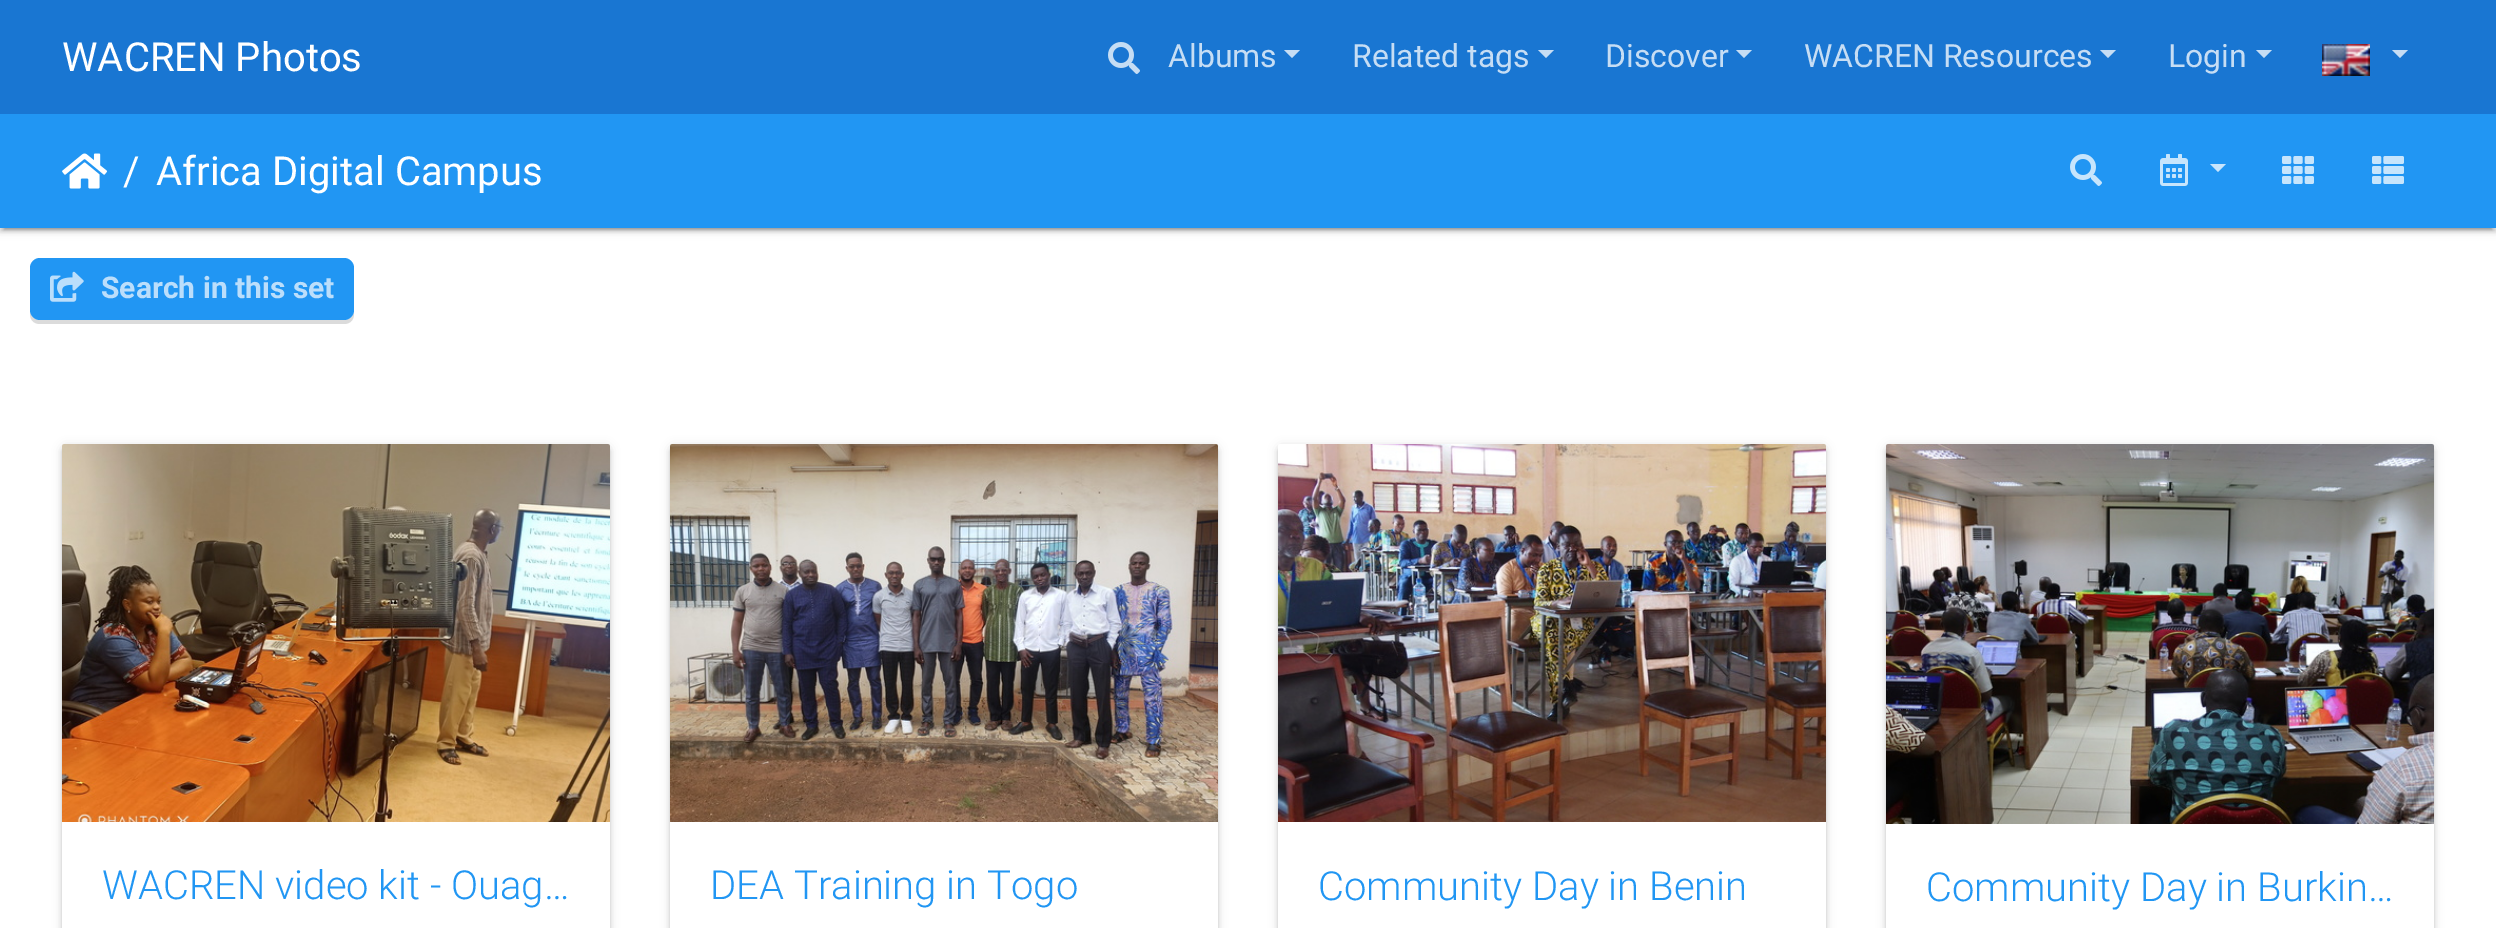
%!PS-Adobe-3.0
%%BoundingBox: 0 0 2496 928
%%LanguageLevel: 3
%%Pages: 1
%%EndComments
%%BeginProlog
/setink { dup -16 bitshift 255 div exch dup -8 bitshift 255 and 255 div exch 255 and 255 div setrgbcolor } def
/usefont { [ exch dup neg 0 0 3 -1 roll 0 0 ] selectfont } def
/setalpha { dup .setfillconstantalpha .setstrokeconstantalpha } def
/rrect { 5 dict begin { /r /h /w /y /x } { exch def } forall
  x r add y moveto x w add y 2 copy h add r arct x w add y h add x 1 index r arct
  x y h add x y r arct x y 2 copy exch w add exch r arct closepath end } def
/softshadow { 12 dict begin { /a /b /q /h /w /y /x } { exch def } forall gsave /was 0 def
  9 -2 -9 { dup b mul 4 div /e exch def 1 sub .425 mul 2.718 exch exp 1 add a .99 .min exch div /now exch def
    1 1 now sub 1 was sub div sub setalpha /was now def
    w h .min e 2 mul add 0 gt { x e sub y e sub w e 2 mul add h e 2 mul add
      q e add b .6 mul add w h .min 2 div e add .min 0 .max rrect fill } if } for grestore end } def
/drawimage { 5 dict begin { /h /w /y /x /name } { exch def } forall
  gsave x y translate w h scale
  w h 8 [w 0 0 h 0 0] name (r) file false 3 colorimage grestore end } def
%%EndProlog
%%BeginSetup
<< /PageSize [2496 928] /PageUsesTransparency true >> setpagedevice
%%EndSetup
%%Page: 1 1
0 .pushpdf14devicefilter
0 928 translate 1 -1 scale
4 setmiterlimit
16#FFFFFF setink
0 0 2496 928 rectfill
16#000000 setink
0 116 2496 114 0 5 0.12 softshadow
0 118 2496 114 0 2 0.14 softshadow
16#1976D2 setink
0 0 2496 114 rectfill
/Roboto-Regular 40 usefont
16#FFFFFF setink
62 71 moveto (WACREN Photos) show
(img1.raw) 1108 42 32 32 drawimage
/Roboto-Regular 32 usefont
16#C6DDF4 setink
1168 67 moveto (Albums) show
1284 50 moveto 1300 50 lineto 1292 58 lineto closepath fill
1352 67 moveto (Related tags) show
1538 50 moveto 1554 50 lineto 1546 58 lineto closepath fill
1605 67 moveto (Discover) show
1736 50 moveto 1752 50 lineto 1744 58 lineto closepath fill
1804 67 moveto (WACREN Resources) show
2100 50 moveto 2116 50 lineto 2108 58 lineto closepath fill
2168 67 moveto (Login) show
2256 50 moveto 2272 50 lineto 2264 58 lineto closepath fill
(img2.raw) 2322 44 48 32 drawimage
2392 50 moveto 2408 50 lineto 2400 58 lineto closepath fill
16#000000 setink
4 124 2488 106 0 1 0.2 softshadow
16#2196F3 setink
0 114 2496 114 rectfill
(img3.raw) 62 153 46 36 drawimage
/Roboto-Regular 40 usefont
16#FFFFFF setink
123 185 moveto (/) show
156 185 moveto (Africa Digital Campus) show
(img4.raw) 2070 154 32 32 drawimage
(img5.raw) 2160 154 28 32 drawimage
16#C8E5FC setink
2210 164 moveto 2226 164 lineto 2218 172 lineto closepath fill
(img6.raw) 2282 156 32 28 drawimage
(img7.raw) 2372 156 32 28 drawimage
16#DBDBDB setink
30 310 moveto 30 314 lineto 30 320 34 324 40 324 curveto 344 324 lineto 350 324 354 320 354 314 curveto 354 310 lineto 354 316 350 320 344 320 curveto 40 320 lineto 34 320 30 316 30 310 curveto closepath fill
16#2196F3 setink
30 258 324 62 10 rrect fill
(img8.raw) 50 271 34 31 drawimage
/Roboto-Bold 30 usefont
16#BBDEFB setink
101 298 moveto (Search in this set) show
16#000000 setink
62 446 548 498 4 5 0.12 softshadow
62 448 548 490 4 2 0.14 softshadow
16#FFFFFF setink
62 444 548 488 4 rrect fill
(img9.raw) 62 444 548 378 drawimage
/Roboto-Light 40 usefont
16#2196F3 setink
102 899 moveto (WACREN video kit - Ouag…) show
16#000000 setink
670 446 548 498 4 5 0.12 softshadow
670 448 548 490 4 2 0.14 softshadow
16#FFFFFF setink
670 444 548 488 4 rrect fill
(img10.raw) 670 444 548 378 drawimage
16#2196F3 setink
710 899 moveto (DEA Training in Togo) show
16#000000 setink
1278 446 548 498 4 5 0.12 softshadow
1278 448 548 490 4 2 0.14 softshadow
16#FFFFFF setink
1278 444 548 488 4 rrect fill
(img11.raw) 1278 444 548 378 drawimage
16#2196F3 setink
1318 900 moveto (Community Day in Benin) show
16#000000 setink
1886 446 548 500 4 5 0.12 softshadow
1886 448 548 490 4 2 0.14 softshadow
16#FFFFFF setink
1886 444 548 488 4 rrect fill
(img12.raw) 1886 444 548 380 drawimage
16#2196F3 setink
1926 901 moveto (Community Day in Burkin…) show
.poppdf14devicefilter showpage
%%EOF
